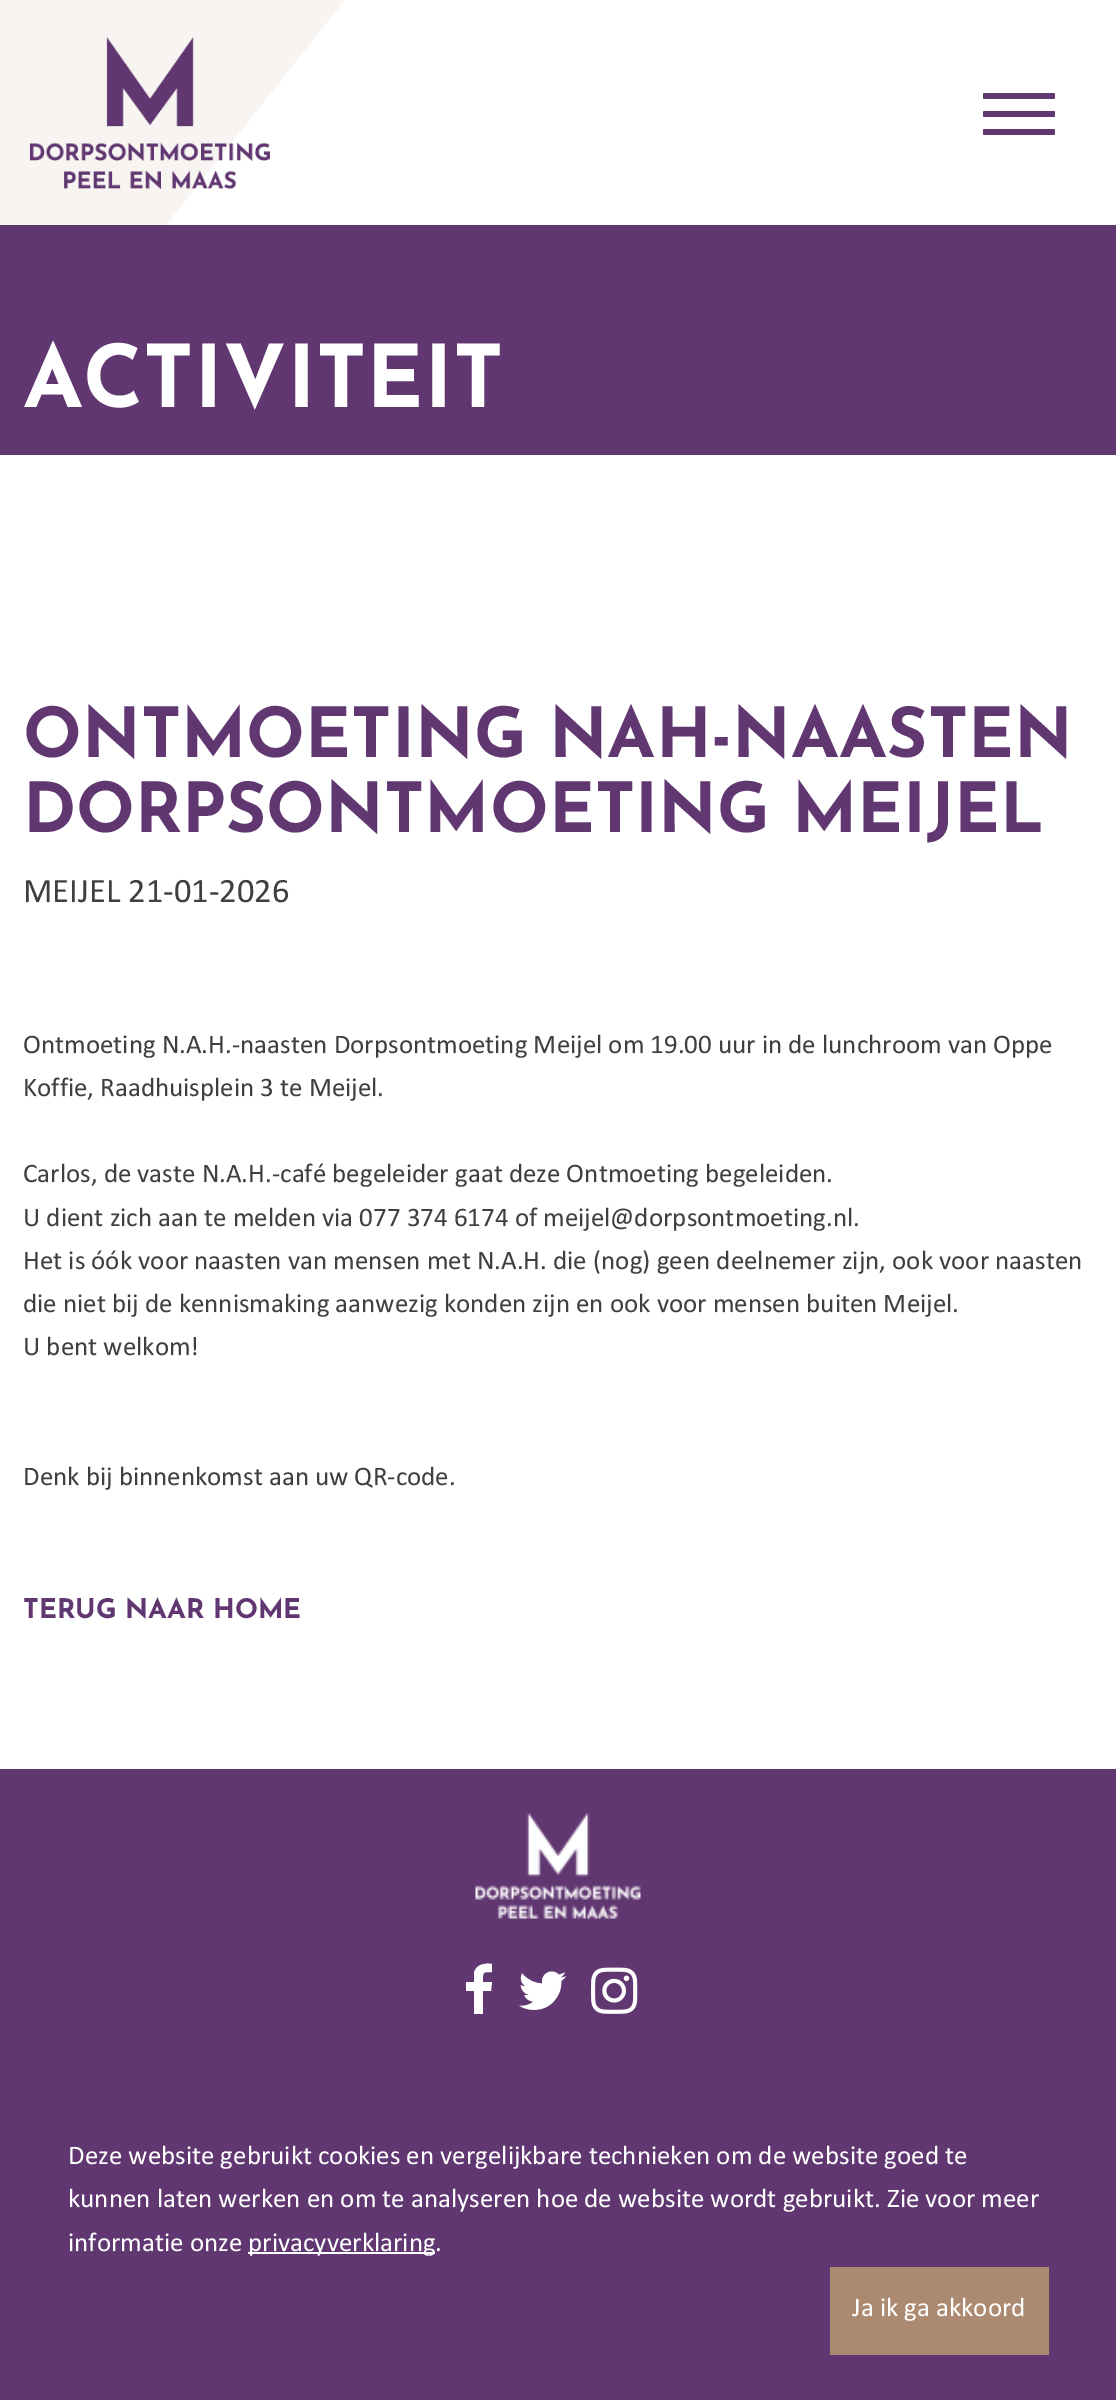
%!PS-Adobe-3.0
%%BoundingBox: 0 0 1116 2400
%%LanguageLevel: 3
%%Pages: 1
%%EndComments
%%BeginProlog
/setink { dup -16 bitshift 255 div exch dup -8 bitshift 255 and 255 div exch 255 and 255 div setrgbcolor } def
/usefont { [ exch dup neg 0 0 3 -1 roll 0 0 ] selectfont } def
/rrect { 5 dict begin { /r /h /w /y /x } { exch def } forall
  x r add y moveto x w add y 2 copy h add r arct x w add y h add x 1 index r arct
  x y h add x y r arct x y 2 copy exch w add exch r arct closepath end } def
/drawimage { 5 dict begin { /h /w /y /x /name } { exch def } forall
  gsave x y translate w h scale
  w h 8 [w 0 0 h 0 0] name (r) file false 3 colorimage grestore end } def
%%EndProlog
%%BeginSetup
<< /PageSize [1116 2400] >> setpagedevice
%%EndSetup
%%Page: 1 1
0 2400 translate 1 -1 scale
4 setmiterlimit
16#FFFFFF setink
0 0 1116 2400 rectfill
(img1.raw) 0 0 345 225 drawimage
(img2.raw) 30 37 240 152 drawimage
16#613771 setink
983 93 72 6 1.5 rrect fill
983 111 72 6 1.5 rrect fill
983 129 72 6 1.5 rrect fill
0 225 1116 230 rectfill
/JosefinSans-Bold 86.5 usefont
16#FFFFFF setink
23 407 moveto (ACTIVITEIT) show
/JosefinSans-Bold 69 usefont
16#613771 setink
23 757 moveto (ONTMOETING NAH-NAASTEN) show
23 832 moveto (DORPSONTMOETING MEIJEL) show
/Calibri-Regular 34.5 usefont
16#3F3F3F setink
23 902 moveto (MEIJEL 21-01-2026) show
/Calibri-Regular 27 usefont
[
    [(Ontmoeting N.A.H.-naasten Dorpsontmoeting Meijel om 19.00 uur in de lunchroom van Oppe) 23 1053]
    [(Koffie, Raadhuisplein 3 te Meijel.) 23 1096]
    [(Carlos, de vaste N.A.H.-café begeleider gaat deze Ontmoeting begeleiden.) 23 1182]
    [(U dient zich aan te melden via 077 374 6174 of meijel@dorpsontmoeting.nl.) 23 1226]
    [(Het is óók voor naasten van mensen met N.A.H. die \(nog\) geen deelnemer zijn, ook voor naasten) 23 1269]
    [(die niet bij de kennismaking aanwezig konden zijn en ook voor mensen buiten Meijel.) 23 1312]
    [(U bent welkom!) 23 1355]
    [(Denk bij binnenkomst aan uw QR-code.) 23 1485]
] { aload pop moveto show } forall
/JosefinSans-Bold 27 usefont
16#613771 setink
23 1618 moveto (TERUG NAAR HOME) show
0 1769 1116 631 rectfill
(img3.raw) 475 1813 166 106 drawimage
16#FFFFFF setink
492 1964 moveto 492 1972 lineto 482 1972 483 1972 483 1982 curveto 492 1982 lineto 491 1991 lineto 483 1991 lineto 483 2014 lineto 474 2014 lineto 474 1991 lineto 466 1991 lineto 466 1982 lineto 474 1982 lineto 474 1973 lineto 476 1964 485 1963 492 1964 curveto closepath fill
(img4.raw) 519 1971 48 39 drawimage
(img5.raw) 591 1967 47 47 drawimage
/Calibri-Regular 27 usefont
[
    [(Deze website gebruikt cookies en vergelijkbare technieken om de website goed te) 68 2164]
    [(kunnen laten werken en om te analyseren hoe de website wordt gebruikt. Zie voor meer) 68 2207]
    [(informatie onze) 68 2251]
] { aload pop moveto show } forall
248 2252 187 2 rectfill
248 2251 moveto (privacyverklaring.) show
16#AC8A71 setink
830 2267 219 88 rectfill
16#FFFFFF setink
852 2316 moveto (Ja ik ga akkoord) show
showpage
%%EOF
